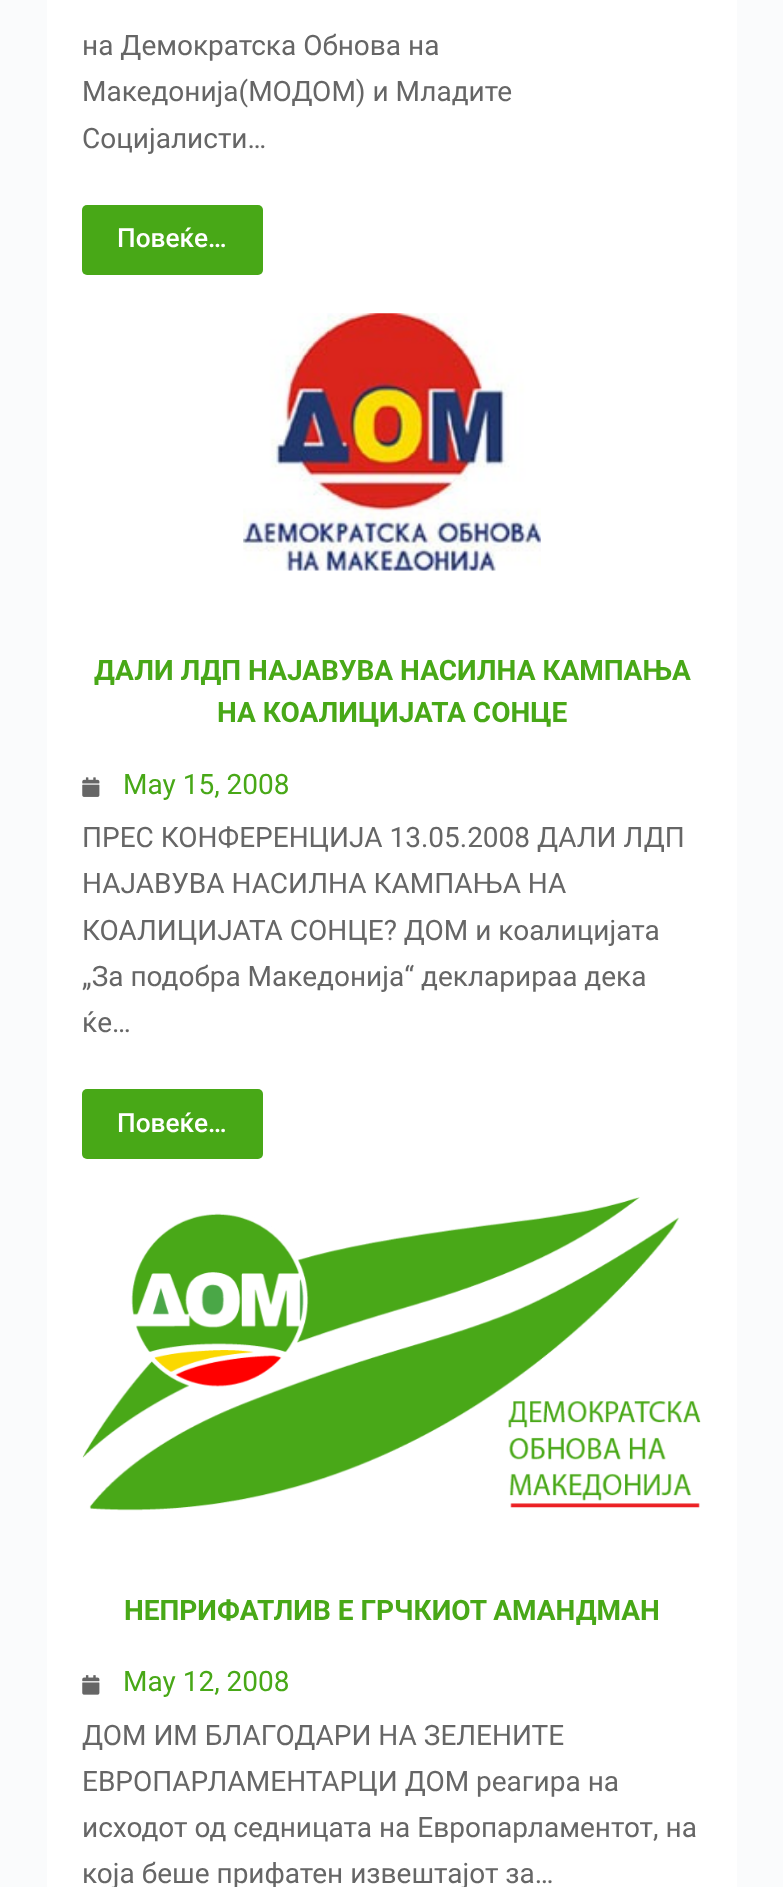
async function draw(canvas) {
	canvas.width = 783;
	canvas.height = 1887;
	const c = canvas.getContext('2d');
	c.miterLimit = 4;
	c.fontKerning = 'normal';
	async function loadImage(src) {
		const img = new Image();
		img.src = src;
		await img.decode();
		return img;
	}

	c.fillStyle = '#fafbfc';
	c.fillRect(0, 0, 783, 1887);
	c.fillStyle = '#fff';
	c.fillRect(47, 0, 690, 1887);
	c.font = '28px Roboto';
	c.fillStyle = '#666';
	for (const [text, x, y] of [
		['на Демократска Обнова на', 82, 55],
		['Македонија(МОДОМ) и Младите', 82, 101],
		['Социјалисти…', 82, 148],
	]) {
		c.fillText(text, x, y);
	}
	c.fillStyle = '#48a817';
	c.beginPath();
	c.roundRect(82, 205, 181, 70, 5);
	c.fill();
	c.font = '500 26.25px Roboto';
	c.fillStyle = '#fff';
	c.fillText('Повеќе…', 117, 247);
	c.drawImage(await loadImage('img1.png'), 243, 313, 298, 258);
	c.font = 'bold 28px Roboto';
	c.fillStyle = '#48a817';
	c.fillText('ДАЛИ ЛДП НАЈАВУВА НАСИЛНА КАМПАЊА', 94, 680);
	c.fillText('НА КОАЛИЦИЈАТА СОНЦЕ', 217, 722);
	c.drawImage(await loadImage('img2.png'), 82, 777, 18, 20);
	c.font = '28px Roboto';
	c.fillText('May 15, 2008', 123, 794);
	c.fillStyle = '#666';
	for (const [text, x, y] of [
		['ПРЕС КОНФЕРЕНЦИЈА 13.05.2008 ДАЛИ ЛДП', 82, 847],
		['НАЈАВУВА НАСИЛНА КАМПАЊА НА', 82, 893],
		['КОАЛИЦИЈАТА СОНЦЕ? ДОМ и коалицијата', 82, 940],
		['„За подобра Македонија“ декларираа дека', 82, 986],
		['ќе…', 82, 1032],
	]) {
		c.fillText(text, x, y);
	}
	c.fillStyle = '#48a817';
	c.beginPath();
	c.roundRect(82, 1089, 181, 70, 5);
	c.fill();
	c.font = '500 26.25px Roboto';
	c.fillStyle = '#fff';
	c.fillText('Повеќе…', 117, 1132);
	c.drawImage(await loadImage('img3.png'), 82, 1197, 619, 314);
	c.font = 'bold 28px Roboto';
	c.fillStyle = '#48a817';
	c.fillText('НЕПРИФАТЛИВ Е ГРЧКИОТ АМАНДМАН', 124, 1620);
	c.drawImage(await loadImage('img4.png'), 82, 1675, 18, 20);
	c.font = '28px Roboto';
	c.fillText('May 12, 2008', 123, 1691);
	c.fillStyle = '#666';
	for (const [text, x, y] of [
		['ДОМ ИМ БЛАГОДАРИ НА ЗЕЛЕНИТЕ', 82, 1745],
		['ЕВРОПАРЛАМЕНТАРЦИ ДОМ реагира на', 82, 1791],
		['исходот од седницата на Европарламентот, на', 82, 1837],
		['која беше прифатен извештајот за…', 82, 1883],
	]) {
		c.fillText(text, x, y);
	}
}

draw(document.querySelector('canvas'));
